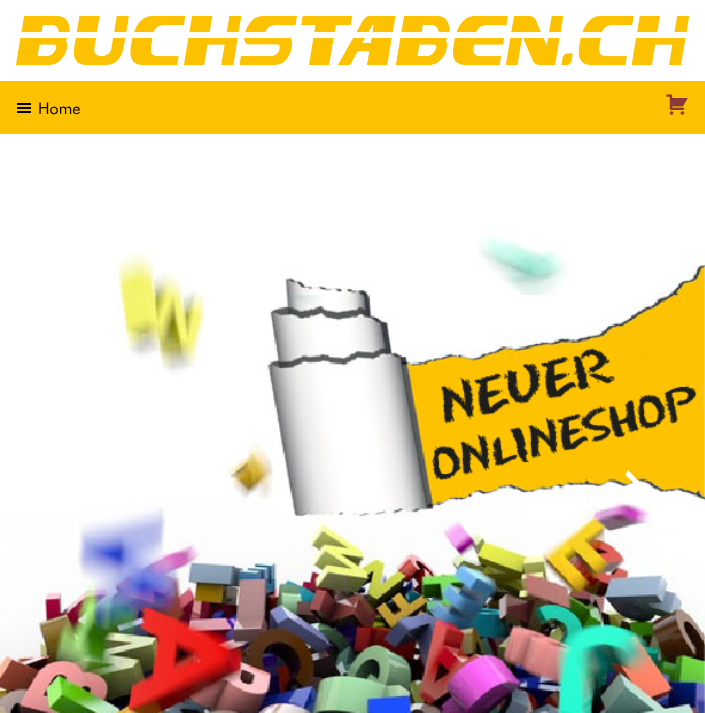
async function draw(canvas) {
	canvas.width = 705;
	canvas.height = 713;
	const c = canvas.getContext('2d');
	c.miterLimit = 4;
	c.fontKerning = 'normal';
	async function loadImage(src) {
		const img = new Image();
		img.src = src;
		await img.decode();
		return img;
	}

	c.fillStyle = '#fff';
	c.fillRect(0, 0, 705, 713);
	c.drawImage(await loadImage('img1.png'), 16, 16, 673, 49);
	c.fillStyle = '#fcc200';
	c.fillRect(0, 81, 705, 53);
	c.drawImage(await loadImage('img2.png'), 17, 103, 14, 10);
	c.font = '16px Futura';
	c.fillStyle = '#000';
	c.fillText('Home', 38, 114);
	c.drawImage(await loadImage('img3.png'), 666, 94, 22, 21);
	c.drawImage(await loadImage('img4.png'), 0, 134, 705, 579);
	c.fillStyle = '#fff';
	c.beginPath();
	c.moveTo(625.5, 499);
	c.lineTo(637.5, 487);
	c.lineTo(625.5, 475);
	c.lineTo(628, 470);
	c.lineTo(644.5, 487);
	c.lineTo(628, 504);
	c.closePath();
	c.fill();
}

draw(document.querySelector('canvas'));
